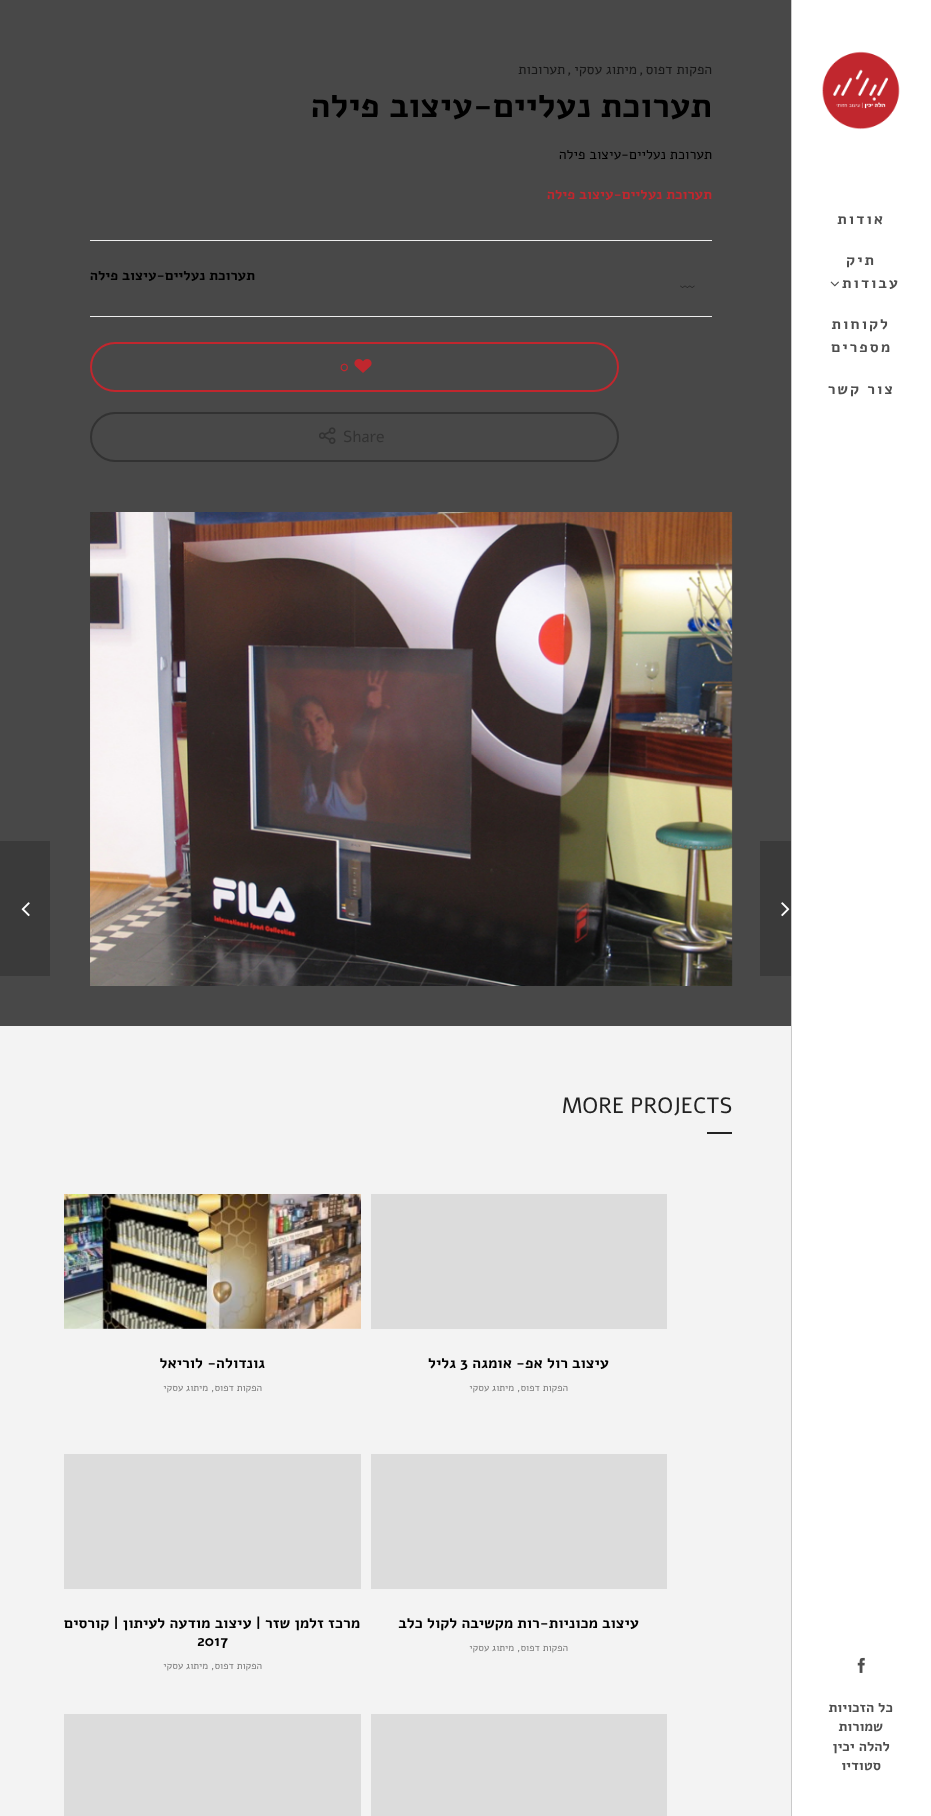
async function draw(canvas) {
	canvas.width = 931;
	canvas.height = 1816;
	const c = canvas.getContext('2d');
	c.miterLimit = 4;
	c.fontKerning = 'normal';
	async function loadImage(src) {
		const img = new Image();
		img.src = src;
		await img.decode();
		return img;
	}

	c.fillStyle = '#484848';
	c.fillRect(0, 0, 931, 1816);
	c.fillStyle = '#fff';
	c.fillRect(792, 0, 139, 1816);
	c.fillStyle = '#cacaca';
	c.fillRect(791, 0, 1, 1816);
	c.drawImage(await loadImage('img1.png'), 822, 51, 78, 79);
	c.letterSpacing = '2px';
	c.direction = 'rtl';
	c.font = 'bold 15px Alef';
	c.fillStyle = '#4e4e4e';
	for (const [text, x, y] of [
		['אודות', 885, 224],
		['תיק', 876, 265],
		['עבודות', 900, 288],
	]) {
		c.fillText(text, x, y);
	}
	c.drawImage(await loadImage('img2.png'), 830, 281, 9, 6);
	for (const [text, x, y] of [
		['לקוחות', 890, 329],
		['מספרים', 892, 352],
		['צור קשר', 895, 394],
	]) {
		c.fillText(text, x, y);
	}
	c.drawImage(await loadImage('img3.png'), 857, 1657, 8, 16);
	c.letterSpacing = '0px';
	c.font = 'bold 14px Alef';
	for (const [text, x, y] of [
		['כל הזכויות', 893, 1712],
		['שמורות', 883, 1731],
		['להלה יכין', 890, 1751],
		['סטודיו', 881, 1770],
	]) {
		c.fillText(text, x, y);
	}
	c.fillStyle = '#3a3a3a';
	c.fillRect(760, 841, 31, 135);
	c.font = '14px Alef';
	c.fillStyle = '#161616';
	c.fillText('הפקות דפוס', 712, 74);
	c.direction = 'ltr';
	c.fillText(',', 639, 74);
	c.direction = 'rtl';
	c.fillText('מיתוג עסקי', 637, 74);
	c.direction = 'ltr';
	c.fillText(',', 567, 74);
	c.direction = 'rtl';
	c.fillText('תערוכות', 565, 74);
	c.font = 'bold 34px Alef';
	c.fillStyle = '#000';
	c.fillText('תערוכת נעליים-עיצוב פילה', 712, 117);
	c.font = '14px Alef';
	c.fillText('תערוכת נעליים-עיצוב פילה', 712, 159);
	c.font = 'bold 14px Alef';
	c.fillStyle = '#c1272e';
	c.fillText('תערוכת נעליים-עיצוב פילה', 712, 199);
	c.fillStyle = '#eee';
	c.fillRect(90, 240, 622, 1);
	c.fillStyle = '#000';
	c.fillText('תערוכת נעליים-עיצוב פילה', 255, 280);
	c.drawImage(await loadImage('img4.png'), 680, 285, 15, 3);
	c.fillStyle = '#eee';
	c.fillRect(90, 316, 622, 1);
	c.beginPath();
	c.roundRect(91, 343, 527, 48, 24);
	c.strokeStyle = '#c1272e';
	c.lineWidth = 2;
	c.stroke();
	c.drawImage(await loadImage('img5.png'), 354, 359, 18, 14);
	c.direction = 'ltr';
	c.font = '14px Alef';
	c.fillStyle = '#c1272e';
	c.fillText('0', 340, 371);
	c.beginPath();
	c.roundRect(91, 413, 527, 48, 24);
	c.strokeStyle = '#323232';
	c.stroke();
	c.font = '16px Alef';
	c.fillStyle = '#323232';
	c.fillText('Share', 343, 442);
	c.drawImage(await loadImage('img6.png'), 319, 427, 17, 17);
	c.drawImage(await loadImage('img7.png'), 90, 512, 643, 474);
	c.drawImage(await loadImage('img8.png'), 781, 902, 9, 15);
	c.fillStyle = '#3a3a3a';
	c.fillRect(0, 841, 50, 135);
	c.drawImage(await loadImage('img9.png'), 21, 902, 9, 15);
	c.fillStyle = '#f3f3f3';
	c.fillRect(0, 1026, 791, 790);
	c.font = '22px Alef';
	c.fillStyle = '#222';
	c.fillText('MORE PROJECTS', 562, 1113);
	c.fillRect(707, 1132, 25, 2);
	c.fillStyle = '#dcdcdc';
	c.fillRect(371, 1194, 296, 135);
	c.direction = 'rtl';
	c.font = 'bold 15px Alef';
	c.fillStyle = '#000';
	c.fillText('עיצוב רול אפ- אומגה', 609, 1368);
	c.direction = 'ltr';
	c.fillText('3', 460, 1368);
	c.direction = 'rtl';
	c.fillText('גליל', 456, 1368);
	c.font = '10px Alef';
	c.fillStyle = '#7d7d7d';
	c.fillText('הפקות דפוס, מיתוג עסקי', 568, 1391);
	c.drawImage(await loadImage('img10.png'), 64, 1194, 297, 135);
	c.font = 'bold 15px Alef';
	c.fillStyle = '#000';
	c.fillText('גונדולה- לוריאל', 265, 1368);
	c.font = '10px Alef';
	c.fillStyle = '#7d7d7d';
	c.fillText('הפקות דפוס, מיתוג עסקי', 262, 1391);
	c.fillStyle = '#dcdcdc';
	c.fillRect(371, 1454, 296, 135);
	c.font = 'bold 15px Alef';
	c.fillStyle = '#000';
	c.fillText('עיצוב מכוניות-רות מקשיבה לקול כלב', 639, 1628);
	c.font = '10px Alef';
	c.fillStyle = '#7d7d7d';
	c.fillText('הפקות דפוס, מיתוג עסקי', 568, 1651);
	c.fillStyle = '#dcdcdc';
	c.fillRect(64, 1454, 297, 135);
	c.font = 'bold 15px Alef';
	c.fillStyle = '#000';
	c.fillText('מרכז זלמן שזר | עיצוב מודעה לעיתון | קורסים', 360, 1628);
	c.direction = 'ltr';
	c.fillText('2017', 197, 1646);
	c.direction = 'rtl';
	c.font = '10px Alef';
	c.fillStyle = '#7d7d7d';
	c.fillText('הפקות דפוס, מיתוג עסקי', 262, 1669);
	c.fillStyle = '#dcdcdc';
	c.fillRect(371, 1714, 296, 102);
	c.fillRect(64, 1714, 297, 102);
}

draw(document.querySelector('canvas'));
